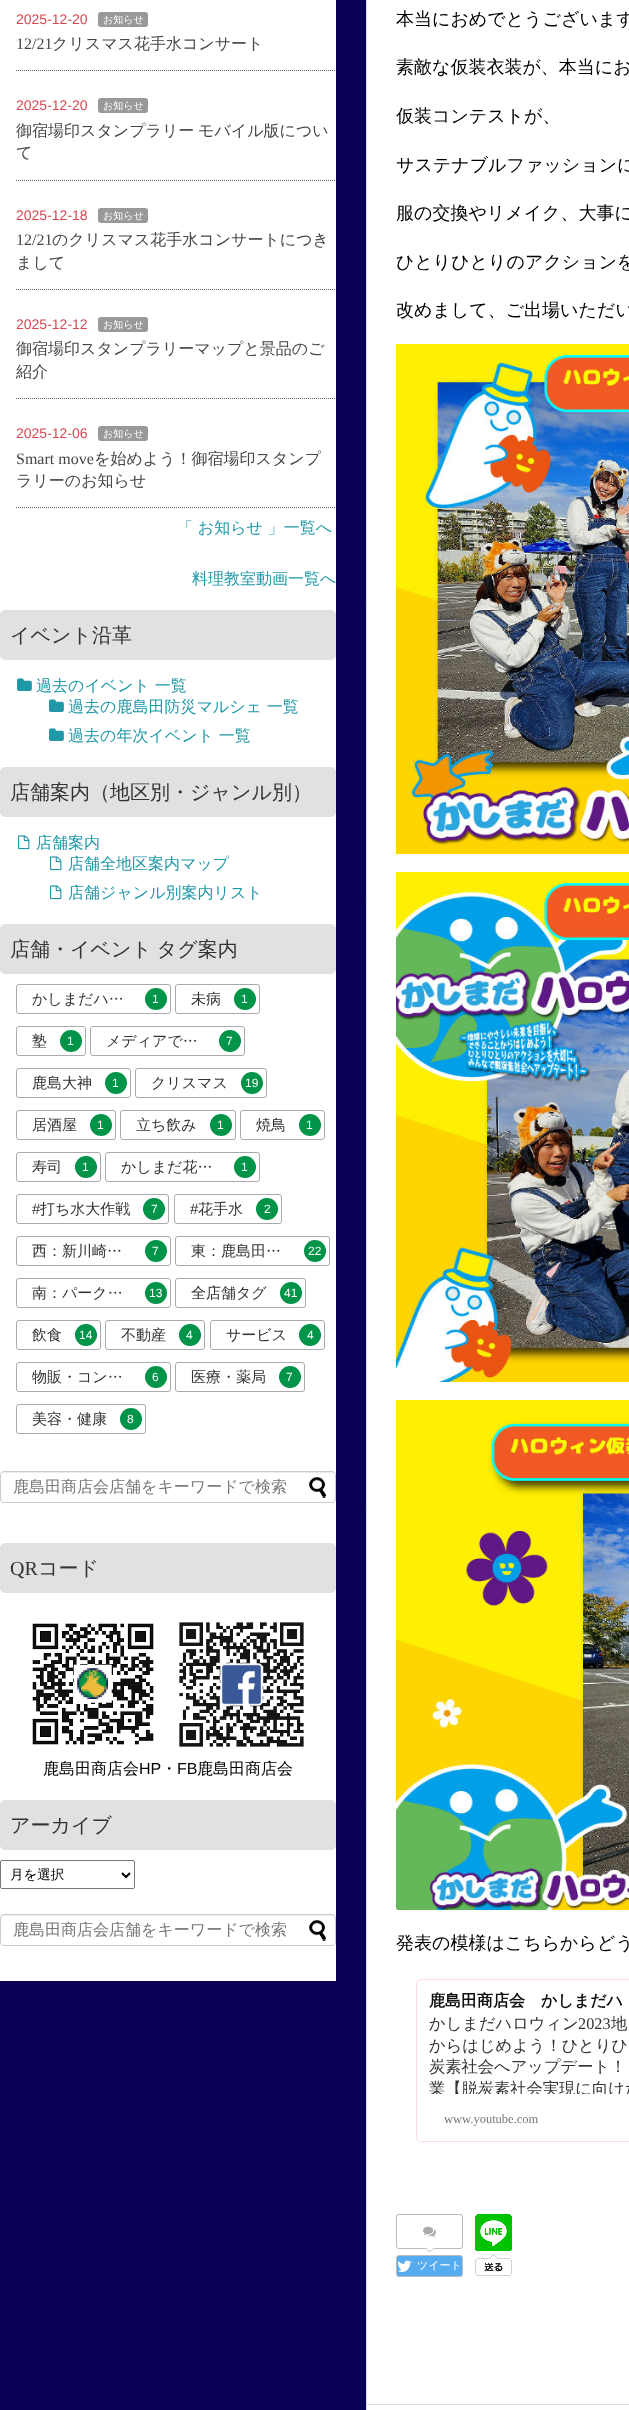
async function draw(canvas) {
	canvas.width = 629;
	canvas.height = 2410;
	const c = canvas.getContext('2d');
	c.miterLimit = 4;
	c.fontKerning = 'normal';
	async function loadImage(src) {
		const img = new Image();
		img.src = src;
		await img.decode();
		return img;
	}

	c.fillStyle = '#0a0056';
	c.fillRect(0, 0, 629, 2410);
	c.fillStyle = '#fff';
	c.fillRect(0, 0, 336, 1981);
	c.beginPath();
	c.moveTo(16, 70.5);
	c.lineTo(336, 70.5);
	c.strokeStyle = '#666';
	c.setLineDash([1, 1]);
	c.stroke();
	c.font = '14px Liberation Sans';
	c.fillStyle = '#d44950';
	c.fillText('2025-12-20', 16, 24);
	c.fillStyle = '#999';
	c.beginPath();
	c.roundRect(98, 12, 50, 15, 3);
	c.fill();
	c.font = '500 10px WenQuanYi Zen Hei';
	c.fillStyle = '#fff';
	c.fillText('お知らせ', 103, 23);
	c.font = '16px Liberation Serif';
	c.fillStyle = '#464646';
	c.fillText('12/21', 16, 49);
	c.font = '500 16px WenQuanYi Zen Hei';
	c.fillText('クリスマス花手水コンサート', 52, 49);
	c.beginPath();
	c.moveTo(16, 180.5);
	c.lineTo(336, 180.5);
	c.stroke();
	c.font = '14px Liberation Sans';
	c.fillStyle = '#d44950';
	c.fillText('2025-12-20', 16, 110);
	c.fillStyle = '#999';
	c.beginPath();
	c.roundRect(98, 98, 50, 15, 3);
	c.fill();
	c.font = '500 10px WenQuanYi Zen Hei';
	c.fillStyle = '#fff';
	c.fillText('お知らせ', 103, 109);
	c.wordSpacing = '-1px';
	c.font = '500 16px WenQuanYi Zen Hei';
	c.fillStyle = '#464646';
	c.fillText('御宿場印スタンプラリー モバイル版につい', 16, 136);
	c.wordSpacing = '0px';
	c.fillText('て', 16, 158);
	c.beginPath();
	c.moveTo(16, 289.5);
	c.lineTo(336, 289.5);
	c.stroke();
	c.font = '14px Liberation Sans';
	c.fillStyle = '#d44950';
	c.fillText('2025-12-18', 16, 220);
	c.fillStyle = '#999';
	c.beginPath();
	c.roundRect(98, 208, 50, 15, 3);
	c.fill();
	c.font = '500 10px WenQuanYi Zen Hei';
	c.fillStyle = '#fff';
	c.fillText('お知らせ', 103, 219);
	c.font = '16px Liberation Serif';
	c.fillStyle = '#464646';
	c.fillText('12/21', 16, 245);
	c.font = '500 16px WenQuanYi Zen Hei';
	c.fillText('のクリスマス花手水コンサートにつき', 52, 245);
	c.fillText('まして', 16, 268);
	c.beginPath();
	c.moveTo(16, 398.5);
	c.lineTo(336, 398.5);
	c.stroke();
	c.font = '14px Liberation Sans';
	c.fillStyle = '#d44950';
	c.fillText('2025-12-12', 16, 329);
	c.fillStyle = '#999';
	c.beginPath();
	c.roundRect(98, 317, 50, 15, 3);
	c.fill();
	c.font = '500 10px WenQuanYi Zen Hei';
	c.fillStyle = '#fff';
	c.fillText('お知らせ', 103, 328);
	c.font = '500 16px WenQuanYi Zen Hei';
	c.fillStyle = '#464646';
	c.fillText('御宿場印スタンプラリーマップと景品のご', 16, 354);
	c.fillText('紹介', 16, 377);
	c.beginPath();
	c.moveTo(16, 507.5);
	c.lineTo(336, 507.5);
	c.stroke();
	c.font = '14px Liberation Sans';
	c.fillStyle = '#d44950';
	c.fillText('2025-12-06', 16, 438);
	c.fillStyle = '#999';
	c.beginPath();
	c.roundRect(98, 426, 50, 15, 3);
	c.fill();
	c.font = '500 10px WenQuanYi Zen Hei';
	c.fillStyle = '#fff';
	c.fillText('お知らせ', 103, 437);
	c.font = '16px Liberation Serif';
	c.fillStyle = '#464646';
	c.fillText('Smart move', 16, 464);
	c.font = '500 16px WenQuanYi Zen Hei';
	c.fillText('を始めよう！御宿場印スタンプ', 94, 464);
	c.fillText('ラリーのお知らせ', 16, 486);
	c.fillStyle = '#2098a8';
	c.fillText('「 お知らせ 」一覧へ', 177, 533);
	c.fillText('料理教室動画一覧へ', 192, 584);
	c.fillStyle = '#e1e1e1';
	c.beginPath();
	c.roundRect(0, 610, 336, 50, 5);
	c.fill();
	c.font = '500 20px WenQuanYi Zen Hei';
	c.fillStyle = '#333';
	c.fillText('イベント沿革', 10, 642);
	c.drawImage(await loadImage('img1.png'), 17, 678, 15, 13);
	c.font = '500 16px WenQuanYi Zen Hei';
	c.fillStyle = '#2098a8';
	c.fillText('過去のイベント 一覧', 36, 691);
	c.drawImage(await loadImage('img1.png'), 49, 699, 15, 13);
	c.fillText('過去の鹿島田防災マルシェ 一覧', 68, 712);
	c.drawImage(await loadImage('img1.png'), 49, 728, 15, 13);
	c.fillText('過去の年次イベント 一覧', 68, 741);
	c.fillStyle = '#e1e1e1';
	c.beginPath();
	c.roundRect(0, 767, 336, 50, 5);
	c.fill();
	c.font = '500 20px WenQuanYi Zen Hei';
	c.fillStyle = '#333';
	c.fillText('店舗案内（地区別・ジャンル別）', 10, 799);
	c.drawImage(await loadImage('img2.png'), 18, 835, 12, 15);
	c.font = '500 16px WenQuanYi Zen Hei';
	c.fillStyle = '#2098a8';
	c.fillText('店舗案内', 36, 848);
	c.drawImage(await loadImage('img2.png'), 50, 856, 12, 15);
	c.fillText('店舗全地区案内マップ', 68, 869);
	c.drawImage(await loadImage('img2.png'), 50, 885, 12, 15);
	c.fillText('店舗ジャンル別案内リスト', 68, 898);
	c.fillStyle = '#e1e1e1';
	c.beginPath();
	c.roundRect(0, 924, 336, 50, 5);
	c.fill();
	c.wordSpacing = '-1px';
	c.font = '500 20px WenQuanYi Zen Hei';
	c.fillStyle = '#333';
	c.fillText('店舗・イベント タグ案内', 10, 956);
	c.beginPath();
	c.roundRect(16.5, 984.5, 154, 29, 2.5);
	c.strokeStyle = '#aaa';
	c.setLineDash([]);
	c.stroke();
	c.wordSpacing = '0px';
	c.font = '500 15px WenQuanYi Zen Hei';
	c.fillText('かしまだハ…', 32, 1004);
	c.fillStyle = '#009448';
	c.beginPath();
	c.arc(156, 999, 11, 0, 2 * Math.PI);
	c.fill();
	c.font = '12px Liberation Sans';
	c.fillStyle = '#fff';
	c.fillText('1', 152, 1003);
	c.beginPath();
	c.roundRect(175.5, 984.5, 84, 29, 2.5);
	c.stroke();
	c.font = '500 15px WenQuanYi Zen Hei';
	c.fillStyle = '#333';
	c.fillText('未病', 191, 1004);
	c.fillStyle = '#009448';
	c.beginPath();
	c.arc(245, 999, 11, 0, 2 * Math.PI);
	c.fill();
	c.font = '12px Liberation Sans';
	c.fillStyle = '#fff';
	c.fillText('1', 241, 1003);
	c.beginPath();
	c.roundRect(16.5, 1026.5, 69, 29, 2.5);
	c.stroke();
	c.font = '500 15px WenQuanYi Zen Hei';
	c.fillStyle = '#333';
	c.fillText('塾', 32, 1046);
	c.fillStyle = '#009448';
	c.beginPath();
	c.arc(71, 1041, 11, 0, 2 * Math.PI);
	c.fill();
	c.font = '12px Liberation Sans';
	c.fillStyle = '#fff';
	c.fillText('1', 67, 1045);
	c.beginPath();
	c.roundRect(90.5, 1026.5, 154, 29, 2.5);
	c.stroke();
	c.font = '500 15px WenQuanYi Zen Hei';
	c.fillStyle = '#333';
	c.fillText('メディアで…', 106, 1046);
	c.fillStyle = '#009448';
	c.beginPath();
	c.arc(230, 1041, 11, 0, 2 * Math.PI);
	c.fill();
	c.font = '12px Liberation Sans';
	c.fillStyle = '#fff';
	c.fillText('7', 226, 1045);
	c.beginPath();
	c.roundRect(16.5, 1068.5, 114, 29, 2.5);
	c.stroke();
	c.font = '500 15px WenQuanYi Zen Hei';
	c.fillStyle = '#333';
	c.fillText('鹿島大神', 32, 1088);
	c.fillStyle = '#009448';
	c.beginPath();
	c.arc(116, 1083, 11, 0, 2 * Math.PI);
	c.fill();
	c.font = '12px Liberation Sans';
	c.fillStyle = '#fff';
	c.fillText('1', 112, 1087);
	c.beginPath();
	c.roundRect(135.5, 1068.5, 131, 29, 2.5);
	c.stroke();
	c.font = '500 15px WenQuanYi Zen Hei';
	c.fillStyle = '#333';
	c.fillText('クリスマス', 151, 1088);
	c.fillStyle = '#009448';
	c.beginPath();
	c.arc(252, 1083, 11, 0, 2 * Math.PI);
	c.fill();
	c.font = '12px Liberation Sans';
	c.fillStyle = '#fff';
	c.fillText('19', 245, 1087);
	c.beginPath();
	c.roundRect(16.5, 1110.5, 99, 29, 2.5);
	c.stroke();
	c.font = '500 15px WenQuanYi Zen Hei';
	c.fillStyle = '#333';
	c.fillText('居酒屋', 32, 1130);
	c.fillStyle = '#009448';
	c.beginPath();
	c.arc(101, 1125, 11, 0, 2 * Math.PI);
	c.fill();
	c.font = '12px Liberation Sans';
	c.fillStyle = '#fff';
	c.fillText('1', 97, 1129);
	c.beginPath();
	c.roundRect(120.5, 1110.5, 115, 29, 2.5);
	c.stroke();
	c.font = '500 15px WenQuanYi Zen Hei';
	c.fillStyle = '#333';
	c.fillText('立ち飲み', 136, 1130);
	c.fillStyle = '#009448';
	c.beginPath();
	c.arc(221, 1125, 11, 0, 2 * Math.PI);
	c.fill();
	c.font = '12px Liberation Sans';
	c.fillStyle = '#fff';
	c.fillText('1', 217, 1129);
	c.beginPath();
	c.roundRect(240.5, 1110.5, 84, 29, 2.5);
	c.stroke();
	c.font = '500 15px WenQuanYi Zen Hei';
	c.fillStyle = '#333';
	c.fillText('焼鳥', 256, 1130);
	c.fillStyle = '#009448';
	c.beginPath();
	c.arc(310, 1125, 11, 0, 2 * Math.PI);
	c.fill();
	c.font = '12px Liberation Sans';
	c.fillStyle = '#fff';
	c.fillText('1', 306, 1129);
	c.beginPath();
	c.roundRect(16.5, 1152.5, 84, 29, 2.5);
	c.stroke();
	c.font = '500 15px WenQuanYi Zen Hei';
	c.fillStyle = '#333';
	c.fillText('寿司', 32, 1172);
	c.fillStyle = '#009448';
	c.beginPath();
	c.arc(86, 1167, 11, 0, 2 * Math.PI);
	c.fill();
	c.font = '12px Liberation Sans';
	c.fillStyle = '#fff';
	c.fillText('1', 82, 1171);
	c.beginPath();
	c.roundRect(105.5, 1152.5, 154, 29, 2.5);
	c.stroke();
	c.font = '500 15px WenQuanYi Zen Hei';
	c.fillStyle = '#333';
	c.fillText('かしまだ花…', 121, 1172);
	c.fillStyle = '#009448';
	c.beginPath();
	c.arc(245, 1167, 11, 0, 2 * Math.PI);
	c.fill();
	c.font = '12px Liberation Sans';
	c.fillStyle = '#fff';
	c.fillText('1', 241, 1171);
	c.beginPath();
	c.roundRect(16.5, 1194.5, 152, 29, 2.5);
	c.stroke();
	c.font = '15px Liberation Sans';
	c.fillStyle = '#333';
	c.fillText('#', 32, 1214);
	c.font = '500 15px WenQuanYi Zen Hei';
	c.fillText('打ち水大作戦', 40, 1214);
	c.fillStyle = '#009448';
	c.beginPath();
	c.arc(154, 1209, 11, 0, 2 * Math.PI);
	c.fill();
	c.font = '12px Liberation Sans';
	c.fillStyle = '#fff';
	c.fillText('7', 151, 1213);
	c.beginPath();
	c.roundRect(174.5, 1194.5, 107, 29, 2.5);
	c.stroke();
	c.font = '15px Liberation Sans';
	c.fillStyle = '#333';
	c.fillText('#', 190, 1214);
	c.font = '500 15px WenQuanYi Zen Hei';
	c.fillText('花手水', 198, 1214);
	c.fillStyle = '#009448';
	c.beginPath();
	c.arc(267, 1209, 11, 0, 2 * Math.PI);
	c.fill();
	c.font = '12px Liberation Sans';
	c.fillStyle = '#fff';
	c.fillText('2', 264, 1213);
	c.beginPath();
	c.roundRect(16.5, 1236.5, 154, 29, 2.5);
	c.stroke();
	c.font = '500 15px WenQuanYi Zen Hei';
	c.fillStyle = '#333';
	c.fillText('西：新川崎…', 32, 1256);
	c.fillStyle = '#009448';
	c.beginPath();
	c.arc(156, 1251, 11, 0, 2 * Math.PI);
	c.fill();
	c.font = '12px Liberation Sans';
	c.fillStyle = '#fff';
	c.fillText('7', 152, 1255);
	c.beginPath();
	c.roundRect(175.5, 1236.5, 154, 29, 2.5);
	c.stroke();
	c.font = '500 15px WenQuanYi Zen Hei';
	c.fillStyle = '#333';
	c.fillText('東：鹿島田…', 191, 1256);
	c.fillStyle = '#009448';
	c.beginPath();
	c.arc(315, 1251, 11, 0, 2 * Math.PI);
	c.fill();
	c.font = '12px Liberation Sans';
	c.fillStyle = '#fff';
	c.fillText('22', 308, 1255);
	c.beginPath();
	c.roundRect(16.5, 1278.5, 154, 29, 2.5);
	c.stroke();
	c.font = '500 15px WenQuanYi Zen Hei';
	c.fillStyle = '#333';
	c.fillText('南：パーク…', 32, 1298);
	c.fillStyle = '#009448';
	c.beginPath();
	c.arc(156, 1293, 11, 0, 2 * Math.PI);
	c.fill();
	c.font = '12px Liberation Sans';
	c.fillStyle = '#fff';
	c.fillText('13', 149, 1297);
	c.beginPath();
	c.roundRect(175.5, 1278.5, 130, 29, 2.5);
	c.stroke();
	c.font = '500 15px WenQuanYi Zen Hei';
	c.fillStyle = '#333';
	c.fillText('全店舗タグ', 191, 1298);
	c.fillStyle = '#009448';
	c.beginPath();
	c.arc(291, 1293, 11, 0, 2 * Math.PI);
	c.fill();
	c.font = '12px Liberation Sans';
	c.fillStyle = '#fff';
	c.fillText('41', 284, 1297);
	c.beginPath();
	c.roundRect(16.5, 1320.5, 84, 29, 2.5);
	c.stroke();
	c.font = '500 15px WenQuanYi Zen Hei';
	c.fillStyle = '#333';
	c.fillText('飲食', 32, 1340);
	c.fillStyle = '#009448';
	c.beginPath();
	c.arc(86, 1335, 11, 0, 2 * Math.PI);
	c.fill();
	c.font = '12px Liberation Sans';
	c.fillStyle = '#fff';
	c.fillText('14', 79, 1339);
	c.beginPath();
	c.roundRect(105.5, 1320.5, 99, 29, 2.5);
	c.stroke();
	c.font = '500 15px WenQuanYi Zen Hei';
	c.fillStyle = '#333';
	c.fillText('不動産', 121, 1340);
	c.fillStyle = '#009448';
	c.beginPath();
	c.arc(190, 1335, 11, 0, 2 * Math.PI);
	c.fill();
	c.font = '12px Liberation Sans';
	c.fillStyle = '#fff';
	c.fillText('4', 186, 1339);
	c.beginPath();
	c.roundRect(210.5, 1320.5, 114, 29, 2.5);
	c.stroke();
	c.font = '500 15px WenQuanYi Zen Hei';
	c.fillStyle = '#333';
	c.fillText('サービス', 226, 1340);
	c.fillStyle = '#009448';
	c.beginPath();
	c.arc(310, 1335, 11, 0, 2 * Math.PI);
	c.fill();
	c.font = '12px Liberation Sans';
	c.fillStyle = '#fff';
	c.fillText('4', 307, 1339);
	c.beginPath();
	c.roundRect(16.5, 1362.5, 154, 29, 2.5);
	c.stroke();
	c.font = '500 15px WenQuanYi Zen Hei';
	c.fillStyle = '#333';
	c.fillText('物販・コン…', 32, 1382);
	c.fillStyle = '#009448';
	c.beginPath();
	c.arc(156, 1377, 11, 0, 2 * Math.PI);
	c.fill();
	c.font = '12px Liberation Sans';
	c.fillStyle = '#fff';
	c.fillText('6', 152, 1381);
	c.beginPath();
	c.roundRect(175.5, 1362.5, 129, 29, 2.5);
	c.stroke();
	c.font = '500 15px WenQuanYi Zen Hei';
	c.fillStyle = '#333';
	c.fillText('医療・薬局', 191, 1382);
	c.fillStyle = '#009448';
	c.beginPath();
	c.arc(290, 1377, 11, 0, 2 * Math.PI);
	c.fill();
	c.font = '12px Liberation Sans';
	c.fillStyle = '#fff';
	c.fillText('7', 286, 1381);
	c.beginPath();
	c.roundRect(16.5, 1404.5, 129, 29, 2.5);
	c.stroke();
	c.font = '500 15px WenQuanYi Zen Hei';
	c.fillStyle = '#333';
	c.fillText('美容・健康', 32, 1424);
	c.fillStyle = '#009448';
	c.beginPath();
	c.arc(131, 1419, 11, 0, 2 * Math.PI);
	c.fill();
	c.font = '12px Liberation Sans';
	c.fillStyle = '#fff';
	c.fillText('8', 127, 1423);
	c.fillStyle = '#ececec';
	c.beginPath();
	c.moveTo(4, 1473);
	c.lineTo(332, 1473);
	c.bezierCurveTo(334, 1473, 335, 1474, 335, 1476);
	c.bezierCurveTo(335, 1474, 334, 1472, 332, 1472);
	c.lineTo(4, 1472);
	c.bezierCurveTo(2, 1472, 1, 1474, 1, 1476);
	c.bezierCurveTo(1, 1474, 2, 1473, 4, 1473);
	c.closePath();
	c.fill();
	c.beginPath();
	c.roundRect(0.5, 1471.5, 335, 31, 3.5);
	c.strokeStyle = '#ccc';
	c.stroke();
	c.font = '500 16px WenQuanYi Zen Hei';
	c.fillStyle = '#777';
	c.fillText('鹿島田商店会店舗をキーワードで検索', 13, 1492);
	c.drawImage(await loadImage('img3.png'), 309, 1477, 17, 21);
	c.fillStyle = '#e1e1e1';
	c.beginPath();
	c.roundRect(0, 1543, 336, 50, 5);
	c.fill();
	c.font = '20px Liberation Serif';
	c.fillStyle = '#333';
	c.fillText('QR', 10, 1575);
	c.font = '500 20px WenQuanYi Zen Hei';
	c.fillText('コード', 38, 1575);
	c.drawImage(await loadImage('img4.png'), 32, 1622, 272, 125);
	c.font = '500 16px WenQuanYi Zen Hei';
	c.fillStyle = '#000';
	c.fillText('鹿島田商店会', 43, 1774);
	c.font = '16px Liberation Sans';
	c.fillText('HP', 139, 1774);
	c.font = '500 16px WenQuanYi Zen Hei';
	c.fillText('・', 161, 1774);
	c.font = '16px Liberation Sans';
	c.fillText('FB', 177, 1774);
	c.font = '500 16px WenQuanYi Zen Hei';
	c.fillText('鹿島田商店会', 197, 1774);
	c.fillStyle = '#e1e1e1';
	c.beginPath();
	c.roundRect(0, 1800, 336, 50, 5);
	c.fill();
	c.font = '500 20px WenQuanYi Zen Hei';
	c.fillStyle = '#333';
	c.fillText('アーカイブ', 10, 1832);
	c.beginPath();
	c.roundRect(0.5, 1860.5, 134, 28, 1.5);
	c.strokeStyle = '#767676';
	c.stroke();
	c.beginPath();
	c.moveTo(122, 1873);
	c.lineTo(126, 1877);
	c.lineTo(130, 1873);
	c.strokeStyle = '#000';
	c.lineWidth = 2;
	c.stroke();
	c.font = '500 13.5px WenQuanYi Zen Hei';
	c.fillStyle = '#000';
	c.fillText('月を選択', 10, 1879);
	c.fillStyle = '#ececec';
	c.beginPath();
	c.moveTo(4, 1916);
	c.lineTo(332, 1916);
	c.bezierCurveTo(334, 1916, 335, 1917, 335, 1919);
	c.bezierCurveTo(335, 1917, 334, 1915, 332, 1915);
	c.lineTo(4, 1915);
	c.bezierCurveTo(2, 1915, 1, 1917, 1, 1919);
	c.bezierCurveTo(1, 1917, 2, 1916, 4, 1916);
	c.closePath();
	c.fill();
	c.beginPath();
	c.roundRect(0.5, 1914.5, 335, 31, 3.5);
	c.strokeStyle = '#ccc';
	c.lineWidth = 1;
	c.stroke();
	c.font = '500 16px WenQuanYi Zen Hei';
	c.fillStyle = '#777';
	c.fillText('鹿島田商店会店舗をキーワードで検索', 13, 1935);
	c.drawImage(await loadImage('img3.png'), 309, 1920, 17, 21);
	c.fillStyle = '#fff';
	c.beginPath();
	c.rect(366.5, -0.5, 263, 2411);
	c.fill();
	c.strokeStyle = '#ddd';
	c.stroke();
	c.font = '500 18px WenQuanYi Zen Hei';
	c.fillStyle = '#000';
	for (const [text, x, y] of [
		['本当におめでとうございます', 396, 25],
		['素敵な仮装衣装が、本当にお', 396, 73],
		['仮装コンテストが、', 396, 122],
		['サステナブルファッションに', 396, 171],
		['服の交換やリメイク、大事に', 396, 219],
		['ひとりひとりのアクションを', 396, 268],
		['改めまして、ご出場いただい', 396, 316],
	]) {
		c.fillText(text, x, y);
	}
	c.drawImage(await loadImage('img5.png'), 396, 344, 233, 510);
	c.drawImage(await loadImage('img6.png'), 396, 872, 233, 510);
	c.drawImage(await loadImage('img7.png'), 396, 1400, 233, 510);
	c.fillText('発表の模様はこちらからどう', 396, 1949);
	c.beginPath();
	c.roundRect(416.5, 1979.5, 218, 162, 4.5);
	c.strokeStyle = '#ffd8f0';
	c.stroke();
	c.font = 'bold 16px WenQuanYi Zen Hei';
	c.fillStyle = '#111';
	c.fillText('鹿島田商店会　かしまだハ', 429, 2006);
	c.font = '500 16.25px WenQuanYi Zen Hei';
	c.fillStyle = '#333';
	c.fillText('かしまだハロウィン', 429, 2029);
	c.font = '16.25px Liberation Serif';
	c.fillText('2023', 578, 2029);
	c.font = '500 16.25px WenQuanYi Zen Hei';
	for (const [text, x, y] of [
		['地', 611, 2029],
		['からはじめよう！ひとりひ', 429, 2051],
		['炭素社会へアップデート！', 429, 2072],
	]) {
		c.fillText(text, x, y);
	}
	c.save();
	c.beginPath();
	c.rect(429, 2014, 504, 80);
	c.clip();
	c.fillText('業【脱炭素社会実現に向けた', 429, 2094);
	c.restore();
	c.font = '12.5px Liberation Serif';
	c.fillStyle = '#777';
	c.fillText('www.youtube.com', 444, 2123);
	c.beginPath();
	c.roundRect(396.5, 2214.5, 66, 34, 2.5);
	c.strokeStyle = '#bbb';
	c.stroke();
	c.drawImage(await loadImage('img8.png'), 423, 2226, 13, 11);
	c.fillStyle = '#ddd';
	c.beginPath();
	c.moveTo(425, 2248);
	c.lineTo(435, 2248);
	c.lineTo(430, 2253);
	c.closePath();
	c.fill();
	c.fillStyle = '#fff';
	c.beginPath();
	c.moveTo(427, 2248);
	c.lineTo(433, 2248);
	c.lineTo(430, 2251);
	c.closePath();
	c.fill();
	c.fillStyle = '#55acee';
	c.beginPath();
	c.roundRect(396.5, 2255.5, 66, 21, 2.5);
	c.fill();
	c.stroke();
	c.drawImage(await loadImage('img9.png'), 397, 2260, 15, 12);
	c.font = '500 11px WenQuanYi Zen Hei';
	c.fillStyle = '#fff';
	c.fillText('ツイート', 417, 2269);
	c.drawImage(await loadImage('img10.png'), 475, 2214, 37, 62);
	c.fillStyle = '#ddd';
	c.fillRect(366, 2404, 263, 1);
}

draw(document.querySelector('canvas'));
